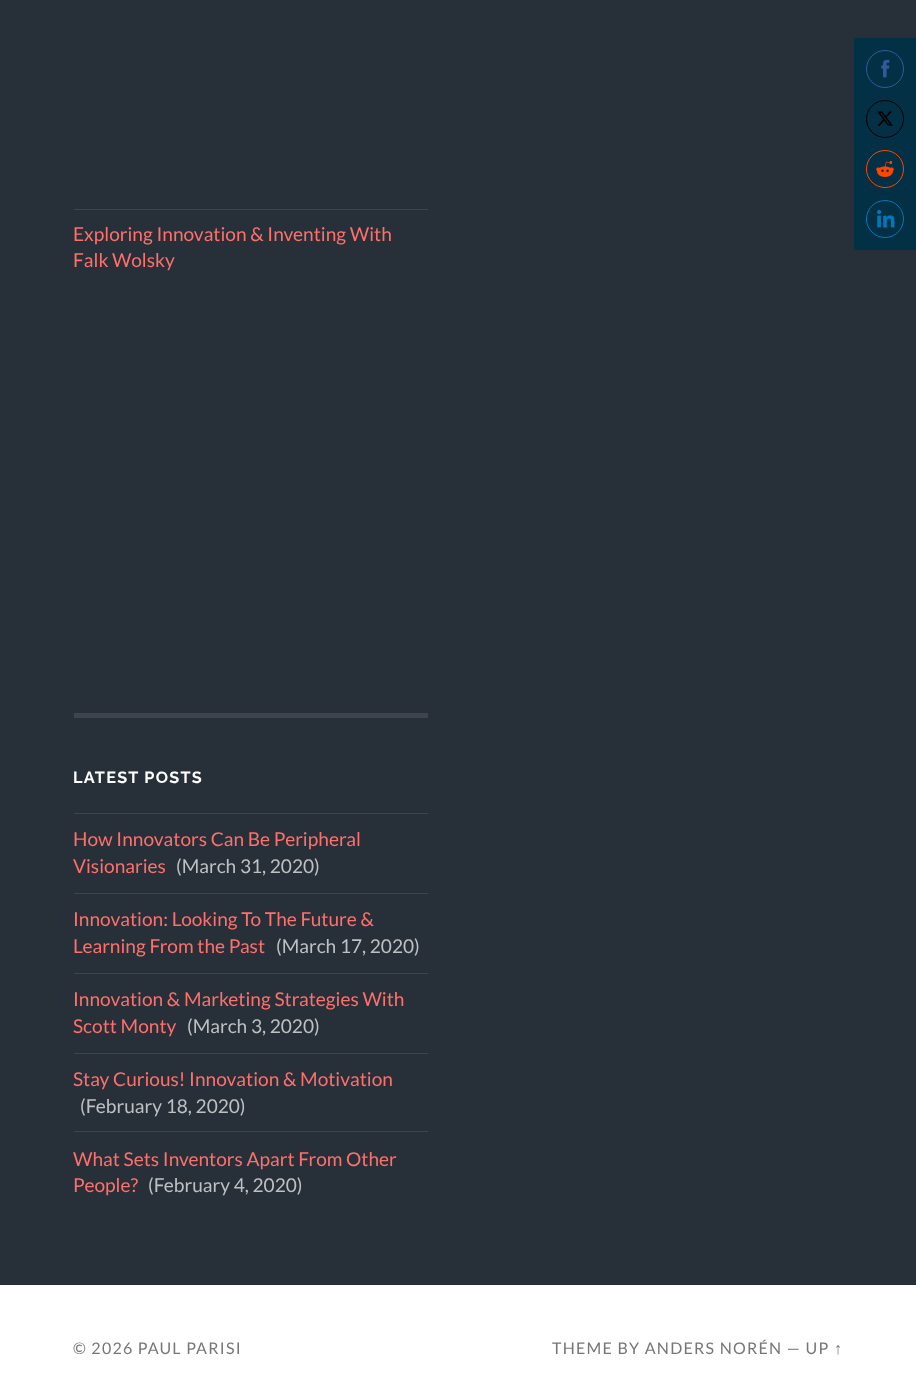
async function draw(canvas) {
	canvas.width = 916;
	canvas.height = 1387;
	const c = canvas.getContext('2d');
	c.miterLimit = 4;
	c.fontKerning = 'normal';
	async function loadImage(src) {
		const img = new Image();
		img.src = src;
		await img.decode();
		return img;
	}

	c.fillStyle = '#fff';
	c.fillRect(0, 0, 916, 1387);
	c.fillStyle = '#272f38';
	c.fillRect(0, 0, 916, 1285);
	c.fillStyle = '#043045';
	c.fillRect(854, 38, 62, 212);
	c.beginPath();
	c.arc(885, 69, 18.5, 0, 2 * Math.PI);
	c.strokeStyle = '#32599d';
	c.stroke();
	c.drawImage(await loadImage('img1.png'), 881, 59, 9, 19);
	c.beginPath();
	c.arc(885, 119, 18.5, 0, 2 * Math.PI);
	c.strokeStyle = '#000';
	c.stroke();
	c.drawImage(await loadImage('img2.png'), 877, 111, 16, 15);
	c.beginPath();
	c.arc(885, 169, 18.5, 0, 2 * Math.PI);
	c.strokeStyle = '#ff4500';
	c.stroke();
	c.drawImage(await loadImage('img3.png'), 876, 161, 18, 16);
	c.beginPath();
	c.arc(885, 219, 18.5, 0, 2 * Math.PI);
	c.strokeStyle = '#0078ba';
	c.stroke();
	c.drawImage(await loadImage('img4.png'), 877, 209, 18, 19);
	c.fillStyle = '#3d444c';
	c.fillRect(74, 713, 354, 5);
	c.fillRect(74, 209, 354, 1);
	c.font = '19.1px Lato';
	c.fillStyle = '#ff706c';
	c.fillText('Exploring Innovation & Inventing With', 73, 241);
	c.fillText('Falk Wolsky', 73, 267);
	c.letterSpacing = '1.25px';
	c.font = '100 16.25px Raleway';
	c.fillStyle = '#fff';
	c.fillText('LATEST POSTS', 73, 783);
	c.fillStyle = '#3d444c';
	c.fillRect(74, 813, 354, 1);
	c.letterSpacing = '0px';
	c.font = '19.1px Lato';
	c.fillStyle = '#ff706c';
	c.fillText('How Innovators Can Be Peripheral', 73, 846);
	c.fillText('Visionaries', 73, 873);
	c.fillStyle = '#bec1c3';
	c.fillText('(March 31, 2020)', 176, 873);
	c.fillStyle = '#3d444c';
	c.fillRect(74, 893, 354, 1);
	c.fillStyle = '#ff706c';
	c.fillText('Innovation: Looking To The Future &', 73, 926);
	c.fillText('Learning From the Past', 73, 953);
	c.fillStyle = '#bec1c3';
	c.fillText('(March 17, 2020)', 276, 953);
	c.fillStyle = '#3d444c';
	c.fillRect(74, 973, 354, 1);
	c.fillStyle = '#ff706c';
	c.fillText('Innovation & Marketing Strategies With', 73, 1006);
	c.fillText('Scott Monty', 73, 1033);
	c.fillStyle = '#bec1c3';
	c.fillText('(March 3, 2020)', 187, 1033);
	c.fillStyle = '#3d444c';
	c.fillRect(74, 1053, 354, 1);
	c.fillStyle = '#ff706c';
	c.fillText('Stay Curious! Innovation & Motivation', 73, 1086);
	c.fillStyle = '#bec1c3';
	c.fillText('(February 18, 2020)', 80, 1113);
	c.fillStyle = '#3d444c';
	c.fillRect(74, 1131, 354, 1);
	c.fillStyle = '#ff706c';
	c.fillText('What Sets Inventors Apart From Other', 73, 1166);
	c.fillText('People?', 73, 1192);
	c.fillStyle = '#bec1c3';
	c.fillText('(February 4, 2020)', 148, 1192);
	c.letterSpacing = '1.25px';
	c.font = '16px Lato';
	c.fillStyle = '#767676';
	c.fillText('© 2026 PAUL PARISI', 73, 1354);
	c.fillText('THEME BY ANDERS NORÉN — UP', 552, 1354);
	c.font = '16px Liberation Sans';
	c.fillText('↑', 834, 1354);
}

draw(document.querySelector('canvas'));
